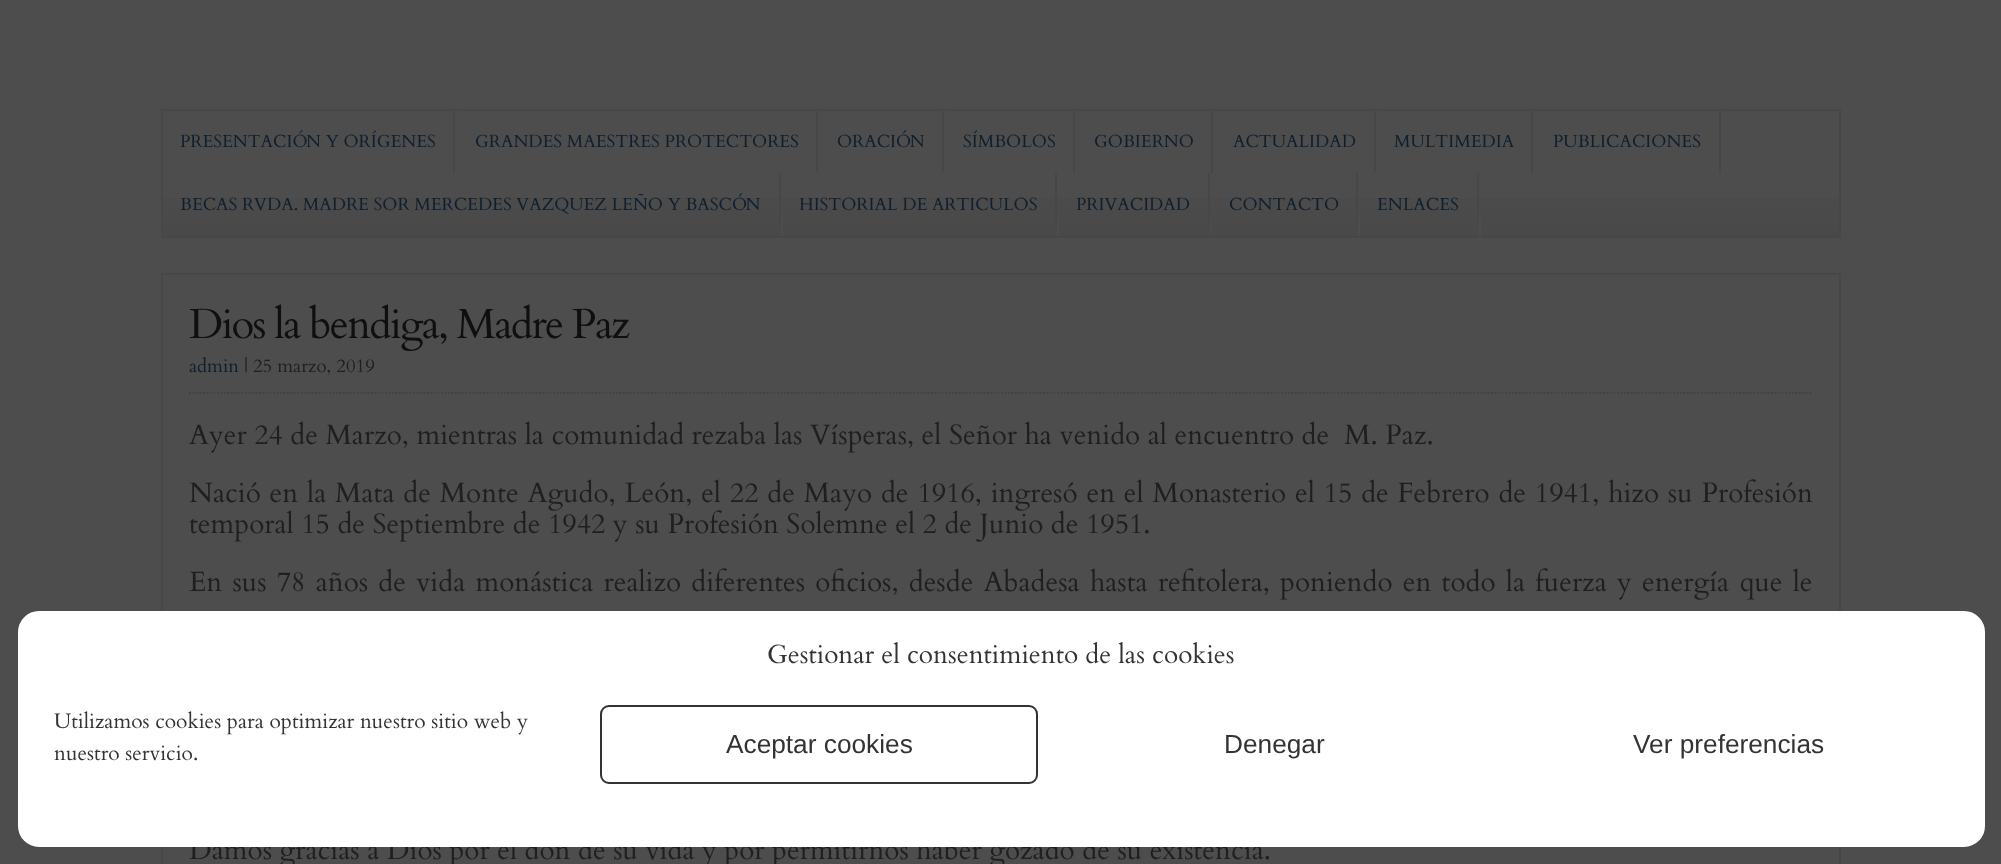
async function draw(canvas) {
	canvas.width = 2001;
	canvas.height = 864;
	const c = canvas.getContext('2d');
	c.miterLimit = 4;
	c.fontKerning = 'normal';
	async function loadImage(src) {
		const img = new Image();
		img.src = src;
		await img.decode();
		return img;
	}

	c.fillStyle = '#4d4d4d';
	c.fillRect(0, 0, 2001, 864);
	c.drawImage(await loadImage('img1.png'), 163, 198, 1676, 38);
	c.strokeStyle = '#474747';
	c.lineWidth = 2;
	c.strokeRect(162, 110, 1678, 127);
	c.fillRect(455, 110, 2, 1);
	c.fillStyle = '#474747';
	c.fillRect(453, 110, 2, 63);
	c.font = '17.5px Cardo';
	c.fillStyle = '#0f1f2e';
	c.fillText('PRESENTACIÓN Y ORÍGENES', 180, 147);
	c.fillStyle = '#4d4d4d';
	c.fillRect(818, 110, 1, 1);
	c.fillStyle = '#474747';
	c.fillRect(816, 110, 2, 63);
	c.fillStyle = '#0f1f2e';
	c.fillText('GRANDES MAESTRES PROTECTORES', 475, 147);
	c.fillStyle = '#4d4d4d';
	c.fillRect(944, 110, 1, 1);
	c.fillStyle = '#474747';
	c.fillRect(942, 110, 2, 63);
	c.fillStyle = '#0f1f2e';
	c.fillText('ORACIÓN', 837, 147);
	c.fillStyle = '#4d4d4d';
	c.fillRect(1075, 110, 2, 1);
	c.fillStyle = '#474747';
	c.fillRect(1073, 110, 2, 63);
	c.fillStyle = '#0f1f2e';
	c.fillText('SÍMBOLOS', 963, 147);
	c.fillStyle = '#4d4d4d';
	c.fillRect(1213, 110, 2, 1);
	c.fillStyle = '#474747';
	c.fillRect(1211, 110, 2, 63);
	c.fillStyle = '#0f1f2e';
	c.fillText('GOBIERNO', 1094, 147);
	c.fillStyle = '#4d4d4d';
	c.fillRect(1376, 110, 2, 1);
	c.fillStyle = '#474747';
	c.fillRect(1374, 110, 2, 63);
	c.fillStyle = '#0f1f2e';
	c.fillText('ACTUALIDAD', 1233, 147);
	c.fillStyle = '#4d4d4d';
	c.fillRect(1533, 110, 2, 1);
	c.fillStyle = '#474747';
	c.fillRect(1531, 110, 2, 63);
	c.fillStyle = '#0f1f2e';
	c.fillText('MULTIMEDIA', 1394, 147);
	c.fillStyle = '#4d4d4d';
	c.fillRect(1721, 110, 1, 1);
	c.fillStyle = '#474747';
	c.fillRect(1719, 110, 2, 63);
	c.fillStyle = '#0f1f2e';
	c.fillText('PUBLICACIONES', 1553, 147);
	c.fillStyle = '#4d4d4d';
	c.fillRect(781, 214, 2, 22);
	c.fillStyle = '#474747';
	c.fillRect(779, 173, 2, 53);
	c.fillStyle = '#0f1f2e';
	c.fillText('BECAS RVDA. MADRE SOR MERCEDES VAZQUEZ LEÑO Y BASCÓN', 180, 210);
	c.fillStyle = '#4d4d4d';
	c.fillRect(1057, 214, 2, 22);
	c.fillStyle = '#474747';
	c.fillRect(1055, 173, 2, 53);
	c.fillStyle = '#0f1f2e';
	c.fillText('HISTORIAL DE ARTICULOS', 799, 210);
	c.fillStyle = '#4d4d4d';
	c.fillRect(1210, 214, 1, 22);
	c.fillStyle = '#474747';
	c.fillRect(1208, 173, 2, 53);
	c.fillStyle = '#0f1f2e';
	c.fillText('PRIVACIDAD', 1076, 210);
	c.fillStyle = '#4d4d4d';
	c.fillRect(1358, 214, 2, 22);
	c.fillStyle = '#474747';
	c.fillRect(1356, 173, 2, 53);
	c.fillStyle = '#0f1f2e';
	c.fillText('CONTACTO', 1229, 210);
	c.fillStyle = '#4d4d4d';
	c.fillRect(1479, 214, 2, 22);
	c.fillStyle = '#474747';
	c.fillRect(1477, 173, 2, 53);
	c.fillStyle = '#0f1f2e';
	c.fillText('ENLACES', 1377, 210);
	c.strokeRect(162, 274, 1678, 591);
	c.letterSpacing = '-1.75px';
	c.font = '42px Cardo';
	c.fillStyle = '#0f0f0f';
	c.fillText('Dios la bendiga, Madre Paz', 189, 338);
	c.beginPath();
	c.moveTo(189, 393);
	c.lineTo(1813, 393);
	c.strokeStyle = '#424242';
	c.lineWidth = 1.8;
	c.setLineDash([1.75, 1.75]);
	c.stroke();
	c.letterSpacing = '0px';
	c.font = '18.75px Cardo';
	c.fillStyle = '#0f1f2e';
	c.fillText('admin', 189, 372);
	c.fillStyle = '#1f1f1f';
	c.fillText('| 25 marzo, 2019', 244, 372);
	c.font = '28px Cardo';
	c.fillText('Ayer 24 de Marzo, mientras la comunidad rezaba las Vísperas, el Señor ha venido al encuentro de  M. Paz.', 189, 444);
	c.wordSpacing = '1.3px';
	c.fillText('Nació en la Mata de Monte Agudo, León, el 22 de Mayo de 1916, ingresó en el Monasterio el 15 de Febrero de 1941, hizo su Profesión', 189, 502);
	c.wordSpacing = '0px';
	c.fillText('temporal 15 de Septiembre de 1942 y su Profesión Solemne el 2 de Junio de 1951.', 189, 533);
	c.wordSpacing = '2.7px';
	c.fillText('En sus 78 años de vida monástica realizo diferentes oficios, desde Abadesa hasta refitolera, poniendo en todo la fuerza y energía que le', 189, 591);
	c.wordSpacing = '0px';
	c.fillText('Damos gracias a Dios por el don de su vida y por permitirnos haber gozado de su existencia.', 189, 859);
	c.fillStyle = '#fff';
	c.beginPath();
	c.roundRect(19, 612, 1965, 234, 20);
	c.fill();
	c.strokeStyle = '#fff';
	c.lineWidth = 2;
	c.setLineDash([]);
	c.stroke();
	c.font = '26.25px Cardo';
	c.fillStyle = '#333';
	c.fillText('Gestionar el consentimiento de las cookies', 767, 663);
	c.font = '21px Cardo';
	c.fillText('Utilizamos cookies para optimizar nuestro sitio web y', 54, 728);
	c.fillText('nuestro servicio.', 54, 760);
	c.beginPath();
	c.roundRect(601, 706, 436, 77, 8);
	c.strokeStyle = '#333';
	c.stroke();
	c.font = '26.25px Liberation Sans';
	for (const [text, x, y] of [
		['Aceptar cookies', 726, 753],
		['Denegar', 1224, 753],
		['Ver preferencias', 1633, 753],
	]) {
		c.fillText(text, x, y);
	}
}

draw(document.querySelector('canvas'));
